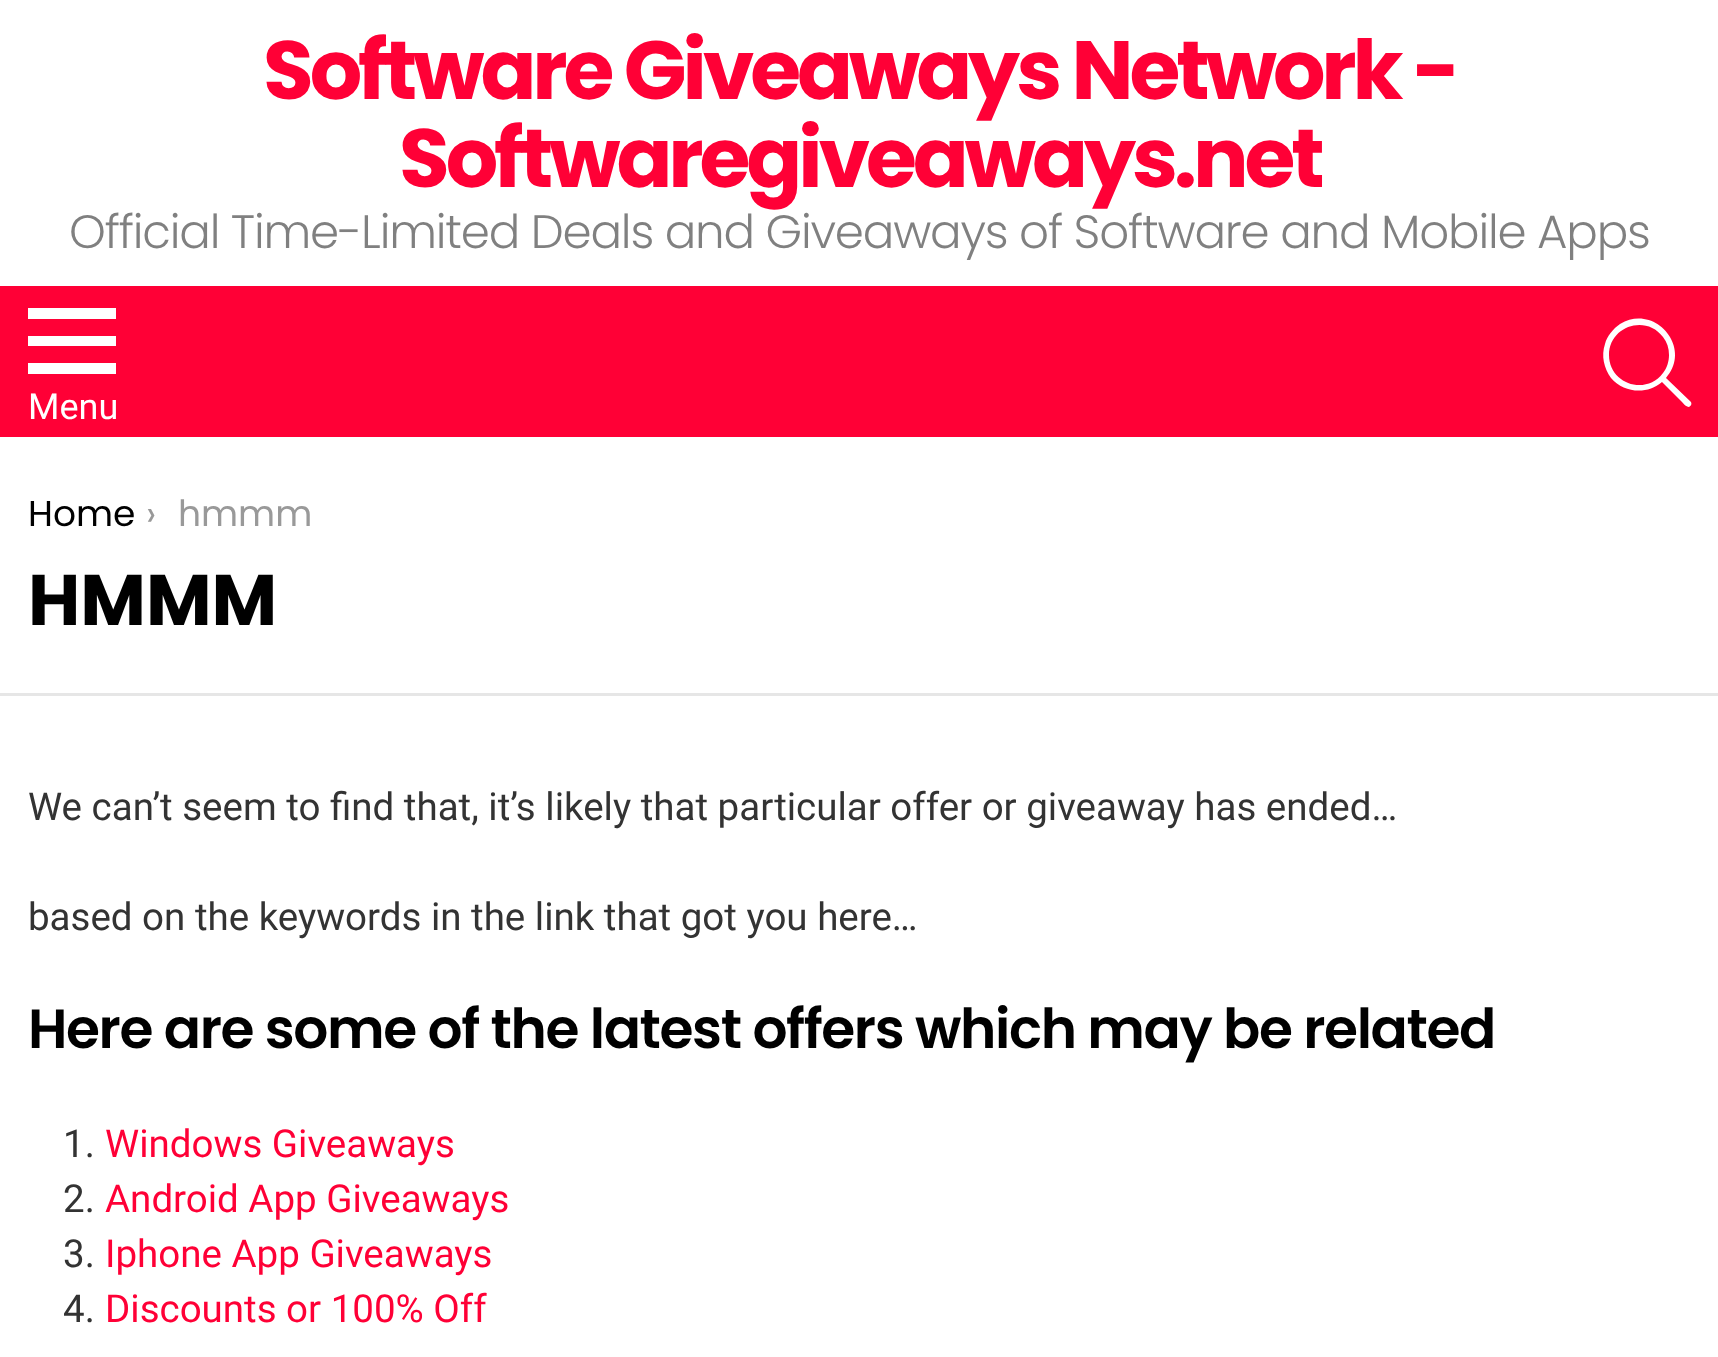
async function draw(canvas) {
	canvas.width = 1718;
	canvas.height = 1357;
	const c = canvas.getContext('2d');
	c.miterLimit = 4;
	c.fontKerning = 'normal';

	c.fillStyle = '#fff';
	c.fillRect(0, 0, 1718, 1357);
	c.letterSpacing = '-4.1px';
	c.font = 'bold 82.5px Poppins';
	c.fillStyle = '#ff0036';
	c.fillText('Software Giveaways Network -', 263, 99);
	c.fillText('Softwaregiveaways.net', 399, 187);
	c.letterSpacing = '-1.17px';
	c.font = '300 46.75px Poppins';
	c.fillStyle = '#808080';
	c.fillText('Official Time-Limited Deals and Giveaways of Software and Mobile Apps', 69, 248);
	c.fillStyle = '#ff0036';
	c.fillRect(0, 286, 1718, 151);
	c.fillStyle = '#fff';
	c.beginPath();
	c.moveTo(28, 308);
	c.lineTo(116, 308);
	c.lineTo(116, 319);
	c.lineTo(28, 319);
	c.closePath();
	c.moveTo(28, 336);
	c.lineTo(116, 336);
	c.lineTo(116, 346);
	c.lineTo(28, 346);
	c.closePath();
	c.moveTo(28, 363);
	c.lineTo(116, 363);
	c.lineTo(116, 374);
	c.lineTo(28, 374);
	c.closePath();
	c.fill();
	c.letterSpacing = '0px';
	c.font = '36px Roboto';
	c.fillText('Menu', 28, 419);
	c.beginPath();
	c.moveTo(1691, 402);
	c.lineTo(1666, 378);
	c.bezierCurveTo(1693, 348, 1655, 303, 1620, 324);
	c.bezierCurveTo(1613, 329, 1607, 336, 1605, 344);
	c.bezierCurveTo(1601, 356, 1604, 368, 1611, 378);
	c.bezierCurveTo(1624, 393, 1647, 395, 1662, 382);
	c.lineTo(1682, 402);
	c.bezierCurveTo(1683, 403, 1686, 407, 1689, 407);
	c.bezierCurveTo(1691, 406, 1692, 404, 1691, 402);
	c.closePath();
	c.moveTo(1609, 355);
	c.bezierCurveTo(1609, 326, 1646, 314, 1663, 337);
	c.bezierCurveTo(1667, 342, 1669, 348, 1669, 355);
	c.bezierCurveTo(1669, 361, 1667, 368, 1663, 373);
	c.bezierCurveTo(1646, 396, 1609, 384, 1609, 355);
	c.closePath();
	c.fill();
	c.font = '36px Poppins';
	c.fillStyle = '#000';
	c.fillText('Home', 28, 526);
	c.fillStyle = '#999';
	c.fillText('›', 146, 526);
	c.fillText('hmmm', 178, 526);
	c.font = 'bold 71.5px Poppins';
	c.fillStyle = '#000';
	c.fillText('HMMM', 28, 625);
	c.fillStyle = '#e6e6e6';
	c.fillRect(0, 693, 1718, 3);
	c.font = '38.5px Roboto';
	c.fillStyle = '#333';
	c.fillText('We can’t seem to find that, it’s likely that particular offer or giveaway has ended…', 28, 820);
	c.fillText('based on the keywords in the link that got you here…', 28, 930);
	c.letterSpacing = '-1.38px';
	c.font = '600 55px Poppins';
	c.fillStyle = '#000';
	c.fillText('Here are some of the latest offers which may be related', 28, 1048);
	c.letterSpacing = '0px';
	c.font = '38.5px Roboto';
	c.fillStyle = '#333';
	c.fillText('1.', 63, 1157);
	c.fillStyle = '#ff0036';
	c.fillText('Windows Giveaways', 105, 1157);
	c.fillStyle = '#333';
	c.fillText('2.', 63, 1212);
	c.fillStyle = '#ff0036';
	c.fillText('Android App Giveaways', 105, 1212);
	c.fillStyle = '#333';
	c.fillText('3.', 63, 1267);
	c.fillStyle = '#ff0036';
	c.fillText('Iphone App Giveaways', 105, 1267);
	c.fillStyle = '#333';
	c.fillText('4.', 63, 1322);
	c.fillStyle = '#ff0036';
	c.fillText('Discounts or 100% Off', 105, 1322);
}

draw(document.querySelector('canvas'));
